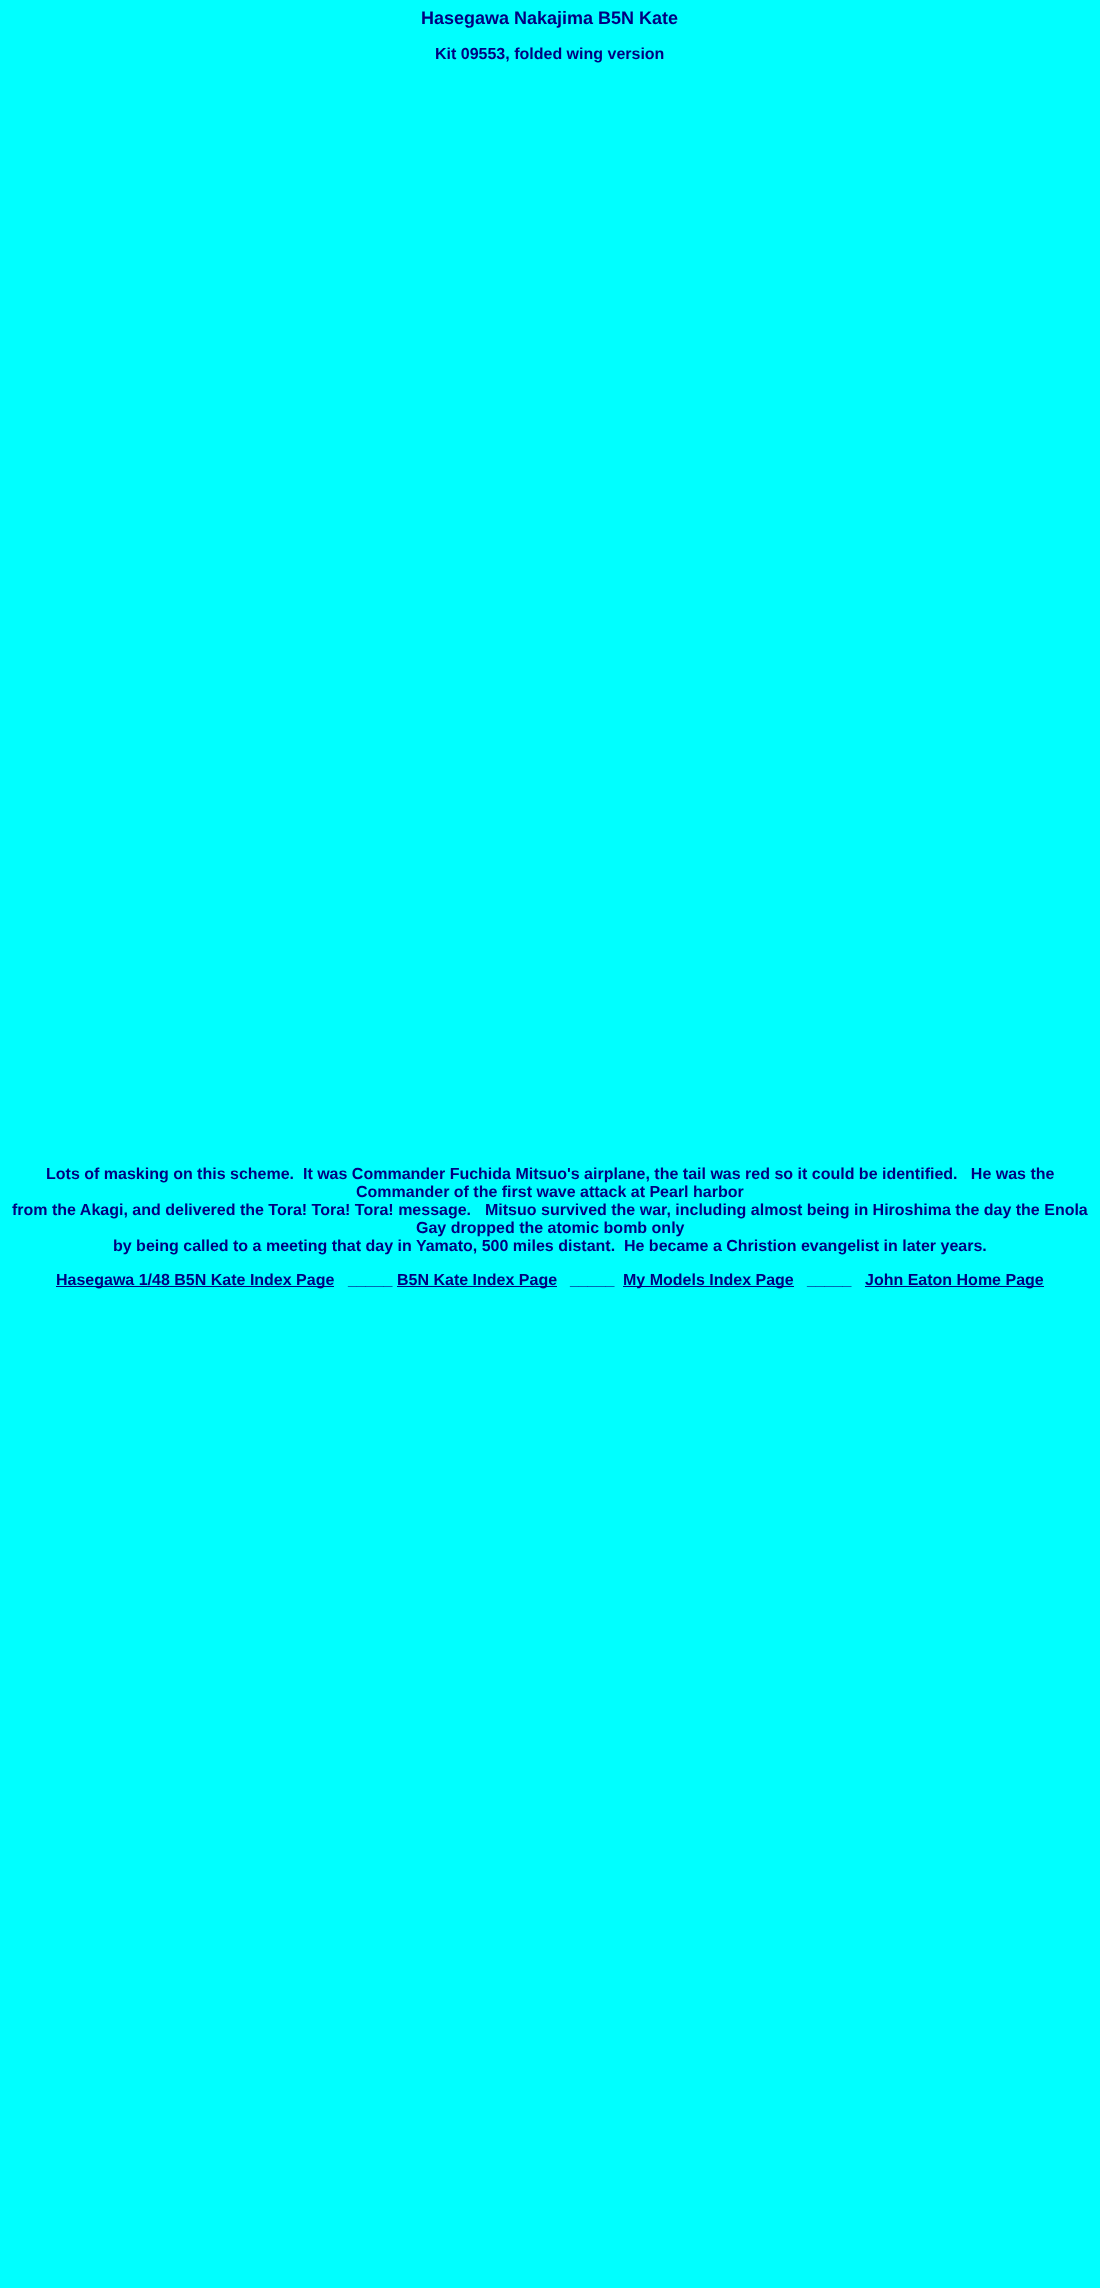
async function draw(canvas) {
	canvas.width = 1100;
	canvas.height = 2288;
	const c = canvas.getContext('2d');
	c.miterLimit = 4;
	c.fontKerning = 'normal';

	c.fillStyle = '#0ff';
	c.fillRect(0, 0, 1100, 2288);
	c.font = 'bold 18px Liberation Sans';
	c.fillStyle = '#000080';
	c.fillText('Hasegawa Nakajima B5N Kate', 421, 24);
	c.font = 'bold 16px Liberation Sans';
	for (const [text, x, y] of [
		['Kit 09553, folded wing version', 435, 59],
		['Lots of masking on this scheme.  It was Commander Fuchida Mitsuo\'s airplane, the tail was red so it could be identified.   He was the', 46, 1179],
		['Commander of the first wave attack at Pearl harbor', 356, 1197],
		['from the Akagi, and delivered the Tora! Tora! Tora! message.', 12, 1215],
		['Mitsuo survived the war, including almost being in Hiroshima the day the Enola', 485, 1215],
		['Gay dropped the atomic bomb only', 416, 1233],
		['by being called to a meeting that day in Yamato, 500 miles distant.  He became a Christion evangelist in later years.', 113, 1251],
	]) {
		c.fillText(text, x, y);
	}
	c.fillRect(56, 1286, 278, 1);
	c.fillText('Hasegawa 1/48 B5N Kate Index Page', 56, 1285);
	c.fillText('_____', 348, 1285);
	c.fillRect(397, 1286, 160, 1);
	c.fillText('B5N Kate Index Page', 397, 1285);
	c.fillText('_____', 570, 1285);
	c.fillRect(623, 1286, 171, 1);
	c.fillText('My Models Index Page', 623, 1285);
	c.fillText('_____', 807, 1285);
	c.fillRect(865, 1286, 179, 1);
	c.fillText('John Eaton Home Page', 865, 1285);
}

draw(document.querySelector('canvas'));
